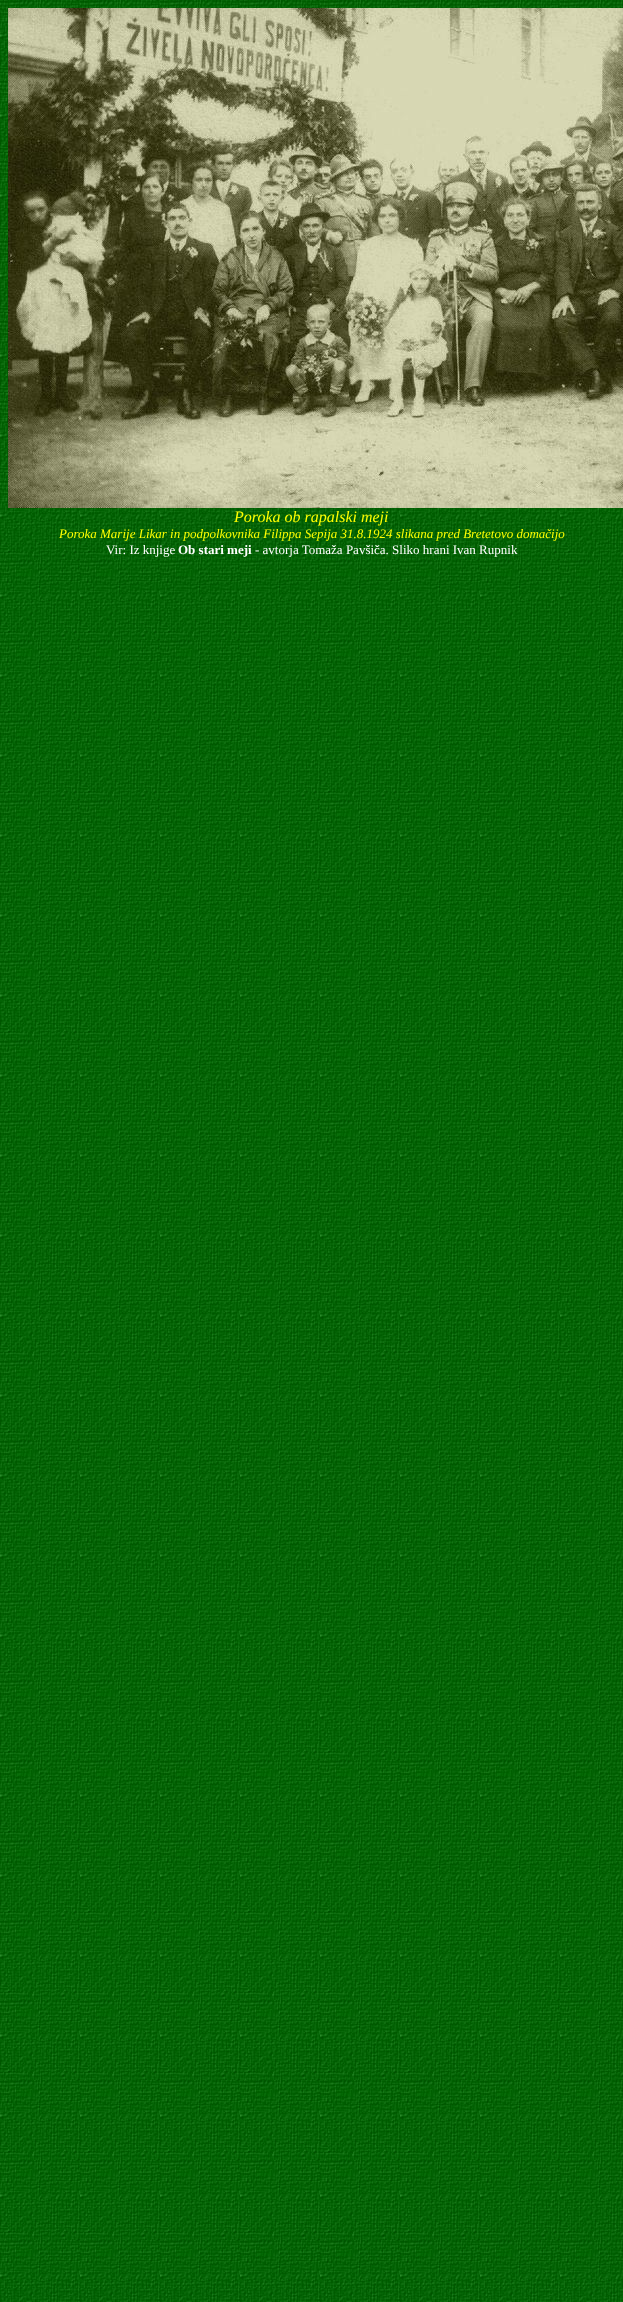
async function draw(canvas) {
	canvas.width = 623;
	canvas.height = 2302;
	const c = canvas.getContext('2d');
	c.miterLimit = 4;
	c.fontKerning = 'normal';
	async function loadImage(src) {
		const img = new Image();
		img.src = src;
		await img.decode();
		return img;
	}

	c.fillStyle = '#fff';
	c.fillRect(0, 0, 623, 2302);
	c.drawImage(await loadImage('img1.png'), 0, 0, 623, 2302);
	c.drawImage(await loadImage('img2.png'), 8, 8, 615, 500);
	c.font = 'italic 16px Liberation Serif';
	c.fillStyle = '#ff0';
	c.fillText('Poroka ob rapalski meji', 234, 522);
	c.font = 'italic 13px Liberation Serif';
	c.fillText('Poroka Marije Likar in podpolkovnika Filippa Sepija 31.8.1924 slikana pred Bretetovo domačijo', 59, 538);
	c.font = '13px Liberation Serif';
	c.fillStyle = '#fff';
	c.fillText('Vir: Iz knjige', 106, 554);
	c.font = 'bold 13px Liberation Serif';
	c.fillText('Ob stari meji', 178, 554);
	c.font = '13px Liberation Serif';
	c.fillText('- avtorja Tomaža Pavšiča. Sliko hrani Ivan Rupnik', 255, 554);
}

draw(document.querySelector('canvas'));
